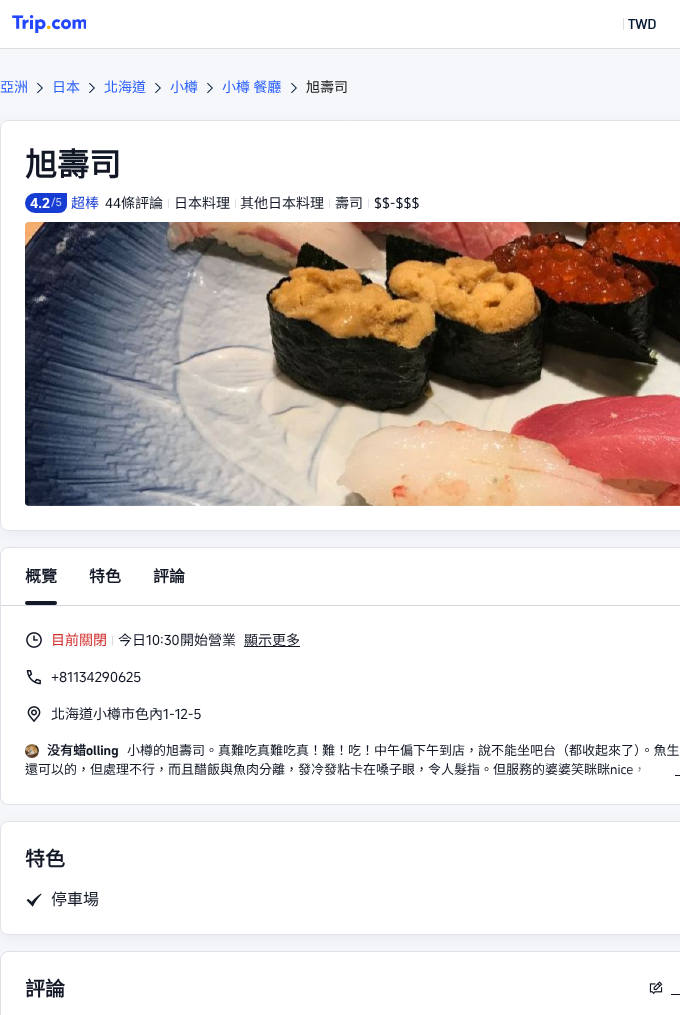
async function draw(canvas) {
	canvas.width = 680;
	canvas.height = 1015;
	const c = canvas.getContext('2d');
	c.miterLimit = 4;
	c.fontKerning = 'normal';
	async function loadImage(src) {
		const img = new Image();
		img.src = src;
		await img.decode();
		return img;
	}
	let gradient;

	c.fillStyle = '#f6f7fa';
	c.fillRect(0, 0, 680, 1015);
	c.fillStyle = '#fff';
	c.fillRect(0, 0, 680, 48);
	c.fillStyle = '#ddd';
	c.fillRect(0, 48, 680, 1);
	c.drawImage(await loadImage('img1.png'), 12, 15, 74, 18);
	c.fillStyle = '#dadfe6';
	c.fillRect(623, 18, 1, 12);
	c.font = '500 14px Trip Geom';
	c.fillStyle = '#051a37';
	c.fillText('TWD', 628, 29);
	c.font = '14px Noto Sans CJK TC';
	c.fillStyle = '#2c61fe';
	c.fillText('亞洲', 0, 92);
	c.drawImage(await loadImage('img2.png'), 37, 82, 6, 12);
	c.fillText('日本', 52, 92);
	c.drawImage(await loadImage('img2.png'), 89, 82, 6, 12);
	c.fillText('北海道', 104, 92);
	c.drawImage(await loadImage('img2.png'), 155, 82, 6, 12);
	c.fillText('小樽', 170, 92);
	c.drawImage(await loadImage('img2.png'), 207, 82, 6, 12);
	c.fillText('小樽 餐廳', 222, 92);
	c.drawImage(await loadImage('img2.png'), 291, 82, 6, 12);
	c.fillStyle = '#151515';
	c.fillText('旭壽司', 306, 92);
	c.fillStyle = '#0f294d0f';
	c.filter = 'blur(8px)';
	c.beginPath();
	c.roundRect(0, 124, 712, 411, 8);
	c.fill();
	c.filter = 'none';
	c.fillStyle = '#fff';
	c.beginPath();
	c.roundRect(0, 120, 680, 411, [8, 0, 0, 8]);
	c.fill();
	c.beginPath();
	c.roundRect(0.5, 120.5, 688, 410, 7.5);
	c.strokeStyle = '#d4d7deb3';
	c.stroke();
	c.font = 'bold 32px Noto Sans CJK TC';
	c.fillStyle = '#121826';
	c.fillText('旭壽司', 25, 176);
	c.fillStyle = '#173cd2';
	c.beginPath();
	c.roundRect(25, 193, 42, 20, [10, 0, 8, 10]);
	c.fill();
	c.font = 'bold 14px Trip Geom';
	c.fillStyle = '#fff';
	c.fillText('4.2', 30, 208);
	c.font = '500 11px Trip Geom';
	c.fillStyle = '#b9c5f2';
	c.fillText('/5', 51, 206);
	c.font = '14px Noto Sans CJK TC';
	c.fillStyle = '#173cd2';
	c.fillText('超棒', 71, 208);
	c.font = '14px Trip Geom';
	c.fillStyle = '#121826';
	c.fillText('44', 105, 208);
	c.font = '14px Noto Sans CJK TC';
	c.fillText('條評論', 121, 208);
	c.font = '10px Trip Geom';
	c.fillStyle = '#d4d7de';
	c.fillText('|', 167, 207);
	c.font = '14px Noto Sans CJK TC';
	c.fillStyle = '#121826';
	c.fillText('日本料理', 174, 208);
	c.font = '10px Trip Geom';
	c.fillStyle = '#d4d7de';
	c.fillText('|', 234, 207);
	c.font = '14px Noto Sans CJK TC';
	c.fillStyle = '#121826';
	c.fillText('其他日本料理', 240, 208);
	c.font = '10px Trip Geom';
	c.fillStyle = '#d4d7de';
	c.fillText('|', 328, 207);
	c.font = '14px Noto Sans CJK TC';
	c.fillStyle = '#121826';
	c.fillText('壽司', 335, 208);
	c.font = '10px Trip Geom';
	c.fillStyle = '#d4d7de';
	c.fillText('|', 367, 207);
	c.font = '14px Trip Geom';
	c.fillStyle = '#121826';
	c.fillText('$$-$$$', 374, 208);
	c.drawImage(await loadImage('img3.png'), 25, 222, 655, 284);
	c.beginPath();
	c.roundRect(0.5, 547.5, 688, 257, 7.5);
	c.stroke();
	c.fillStyle = '#fff';
	c.beginPath();
	c.roundRect(1, 548, 679, 58, [8, 0, 0, 0]);
	c.fill();
	c.fillStyle = '#d4d7de';
	c.fillRect(1, 605, 679, 1);
	c.font = 'bold 16px Noto Sans CJK TC';
	c.fillStyle = '#121826';
	c.fillText('概覽', 25, 582);
	c.beginPath();
	c.roundRect(25, 601, 32, 4, 2);
	c.fill();
	c.fillText('特色', 89, 582);
	c.fillText('評論', 153, 582);
	c.fillStyle = '#fff';
	c.beginPath();
	c.roundRect(1, 606, 679, 198, [0, 0, 0, 8]);
	c.fill();
	c.drawImage(await loadImage('img4.png'), 26, 632, 16, 16);
	c.font = '14px Noto Sans CJK TC';
	c.fillStyle = '#d02c2a';
	c.fillText('目前關閉', 51, 645);
	c.font = '12px Trip Geom';
	c.fillStyle = '#d4d7de';
	c.fillText('|', 111, 645);
	c.font = '14px Noto Sans CJK TC';
	c.fillStyle = '#121826';
	c.fillText('今日', 118, 645);
	c.font = '14px Trip Geom';
	c.fillText('10:30', 146, 645);
	c.font = '14px Noto Sans CJK TC';
	c.fillText('開始營業', 180, 645);
	c.fillRect(244, 646, 56, 1);
	c.fillText('顯示更多', 244, 645);
	c.drawImage(await loadImage('img5.png'), 26, 670, 15, 15);
	c.font = '14px Trip Geom';
	c.fillText('+81134290625', 51, 682);
	c.drawImage(await loadImage('img6.png'), 27, 706, 14, 17);
	c.font = '14px Noto Sans CJK TC';
	c.fillText('北海道小樽市色內', 51, 719);
	c.font = '14px Trip Geom';
	c.fillText('1-12-5', 163, 719);
	c.drawImage(await loadImage('img7.png'), 25, 744, 14, 14);
	c.font = 'bold 13px Noto Sans CJK TC';
	c.fillText('没有蜡', 47, 755);
	c.font = 'bold 13px Trip Geom';
	c.fillText('olling', 86, 755);
	c.font = '13px Noto Sans CJK TC';
	c.fillText('小樽的旭壽司。真難吃真難吃真！難！吃！中午偏下午到店，說不能坐吧台（都收起來了）。魚生', 127, 755);
	c.fillText('還可以的，但處理不行，而且醋飯與魚肉分離，發冷發粘卡在嗓子眼，令人髮指。但服務的婆婆笑眯眯', 25, 774);
	c.font = '13px Trip Geom';
	c.fillText('nice', 610, 774);
	c.font = '13px Noto Sans CJK TC';
	c.fillText('，', 633, 774);
	gradient = c.createLinearGradient(625, 770, 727, 770);
	gradient.addColorStop(0, '#ffffff00');
	gradient.addColorStop(0.3, '#fff');
	gradient.addColorStop(1, '#fff');
	c.fillStyle = gradient;
	c.fillRect(627, 767, 15, 8);
	c.fillStyle = '#121826';
	c.fillRect(675, 775, 5, 1);
	c.fillStyle = '#0f294d0f';
	c.filter = 'blur(8px)';
	c.beginPath();
	c.roundRect(0, 825, 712, 114, 8);
	c.fill();
	c.filter = 'none';
	c.fillStyle = '#fff';
	c.beginPath();
	c.roundRect(0, 821, 680, 114, [8, 0, 0, 8]);
	c.fill();
	c.beginPath();
	c.roundRect(0.5, 821.5, 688, 113, 7.5);
	c.stroke();
	c.font = 'bold 20px Noto Sans CJK TC';
	c.fillStyle = '#121826';
	c.fillText('特色', 25, 866);
	c.drawImage(await loadImage('img8.png'), 26, 893, 16, 14);
	c.font = '16px Noto Sans CJK TC';
	c.fillText('停車場', 51, 905);
	c.beginPath();
	c.roundRect(0.5, 951.5, 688, 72, 7.5);
	c.strokeStyle = '#dee0e6';
	c.stroke();
	c.fillStyle = '#fff';
	c.beginPath();
	c.roundRect(1, 952, 679, 63, [8, 0, 0, 0]);
	c.fill();
	c.font = 'bold 20px Noto Sans CJK TC';
	c.fillStyle = '#121826';
	c.fillText('評論', 25, 996);
	c.drawImage(await loadImage('img9.png'), 649, 981, 14, 14);
	c.fillRect(671, 994, 9, 1);
}

draw(document.querySelector('canvas'));
